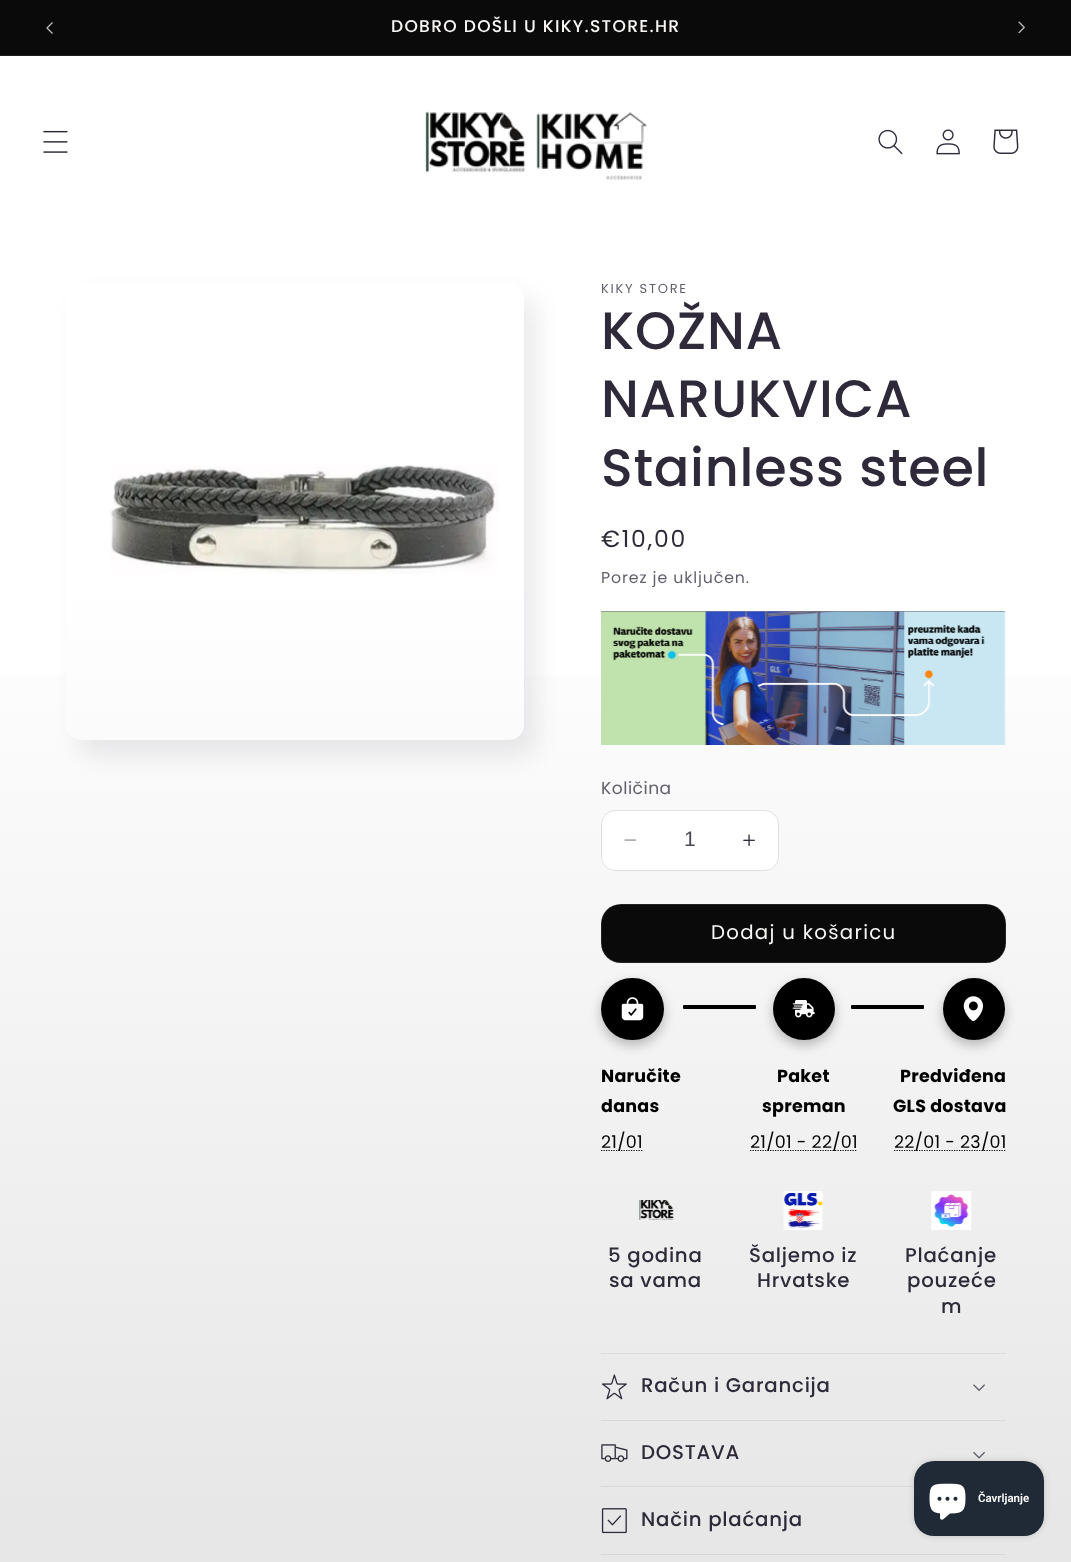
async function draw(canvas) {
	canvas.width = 1071;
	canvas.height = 1562;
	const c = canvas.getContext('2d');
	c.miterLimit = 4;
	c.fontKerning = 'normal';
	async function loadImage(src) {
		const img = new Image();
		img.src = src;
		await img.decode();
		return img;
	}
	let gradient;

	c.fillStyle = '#fff';
	c.fillRect(0, 0, 1071, 1562);
	gradient = c.createLinearGradient(536, 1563, 536, 0);
	gradient.addColorStop(0.03, '#e7e7e7');
	gradient.addColorStop(0.63, '#fff');
	c.fillStyle = gradient;
	c.fillRect(0, 676, 1071, 886);
	c.fillStyle = '#090a09';
	c.fillRect(0, 0, 1071, 55);
	c.fillStyle = '#1c1d1c';
	c.fillRect(0, 55, 1071, 1);
	c.drawImage(await loadImage('img1.png'), 46, 22, 7, 12);
	c.letterSpacing = '1.3px';
	c.font = '500 17.1px Poppins';
	c.fillStyle = '#f9f7f6';
	c.fillText('DOBRO DOŠLI U KIKY.STORE.HR', 391, 32);
	c.drawImage(await loadImage('img2.png'), 1018, 21, 7, 13);
	c.drawImage(await loadImage('img3.png'), 43, 130, 25, 23);
	c.drawImage(await loadImage('img4.png'), 425, 111, 222, 69);
	c.drawImage(await loadImage('img5.png'), 878, 129, 25, 26);
	c.drawImage(await loadImage('img6.png'), 936, 129, 24, 26);
	c.drawImage(await loadImage('img7.png'), 993, 129, 26, 25);
	c.fillStyle = '#2e2a391a';
	c.filter = 'blur(12.5px)';
	c.beginPath();
	c.roundRect(79, 298, 457, 457, 15);
	c.fill();
	c.filter = 'none';
	gradient = c.createLinearGradient(536, 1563, 536, 0);
	gradient.addColorStop(0.03, '#e7e7e7');
	gradient.addColorStop(0.63, '#fff');
	c.fillStyle = gradient;
	c.beginPath();
	c.roundRect(66, 283, 458, 457, 15);
	c.fill();
	c.drawImage(await loadImage('img8.png'), 110, 465, 389, 109);
	c.letterSpacing = '1.75px';
	c.font = '13px Poppins';
	c.fillStyle = '#625f6b';
	c.fillText('KIKY STORE', 601, 293);
	c.letterSpacing = '0.75px';
	c.font = '500 52.5px Poppins';
	c.fillStyle = '#2e2a39';
	for (const [text, x, y] of [
		['KOŽNA', 601, 349],
		['NARUKVICA', 601, 417],
		['Stainless steel', 601, 486],
	]) {
		c.fillText(text, x, y);
	}
	c.letterSpacing = '1.75px';
	c.font = '23.5px Poppins';
	c.fillText('€10,00', 601, 547);
	c.letterSpacing = '0.9px';
	c.font = '15.75px Poppins';
	c.fillStyle = '#625f6b';
	c.fillText('Porez je uključen.', 601, 583);
	c.drawImage(await loadImage('img9.png'), 601, 611, 405, 134);
	c.letterSpacing = '0.5px';
	c.font = '17.1px Poppins';
	c.fillText('Količina', 601, 794);
	c.fillStyle = '#fff';
	c.beginPath();
	c.roundRect(601, 810, 178, 61, 14);
	c.fill();
	c.drawImage(await loadImage('img10.png'), 624, 839, 13, 2);
	c.drawImage(await loadImage('img11.png'), 743, 834, 12, 12);
	c.beginPath();
	c.roundRect(601.5, 810.5, 177, 60, 13.5);
	c.strokeStyle = '#2e2a3926';
	c.stroke();
	c.letterSpacing = '0px';
	c.font = '21px Liberation Sans';
	c.fillStyle = '#4d4a57';
	c.fillText('1', 684, 846);
	c.fillStyle = '#090a09';
	c.beginPath();
	c.roundRect(601, 904, 405, 59, 20);
	c.fill();
	c.beginPath();
	c.roundRect(601.2, 904.2, 404.6, 58.6, 19.8);
	c.strokeStyle = '#f9f7f666';
	c.lineWidth = 0.4;
	c.stroke();
	c.letterSpacing = '1.3px';
	c.font = '19.75px Poppins';
	c.fillStyle = '#f9f7f6';
	c.fillText('Dodaj u košaricu', 711, 939);
	c.fillStyle = '#00000040';
	c.filter = 'blur(6px)';
	c.beginPath();
	c.roundRect(601, 983, 63, 62, 31);
	c.fill();
	c.filter = 'none';
	c.fillStyle = '#000';
	c.beginPath();
	c.roundRect(601, 978, 63, 62, 31);
	c.fill();
	c.drawImage(await loadImage('img12.png'), 621, 997, 23, 24);
	c.letterSpacing = '0.25px';
	c.font = 'bold 17.5px Poppins';
	c.fillText('Naručite', 601, 1082);
	c.fillText('danas', 601, 1112);
	c.beginPath();
	c.moveTo(601, 1150.5);
	c.lineTo(643, 1150.5);
	c.strokeStyle = '#000';
	c.lineWidth = 1.2;
	c.setLineDash([1.25, 1.25]);
	c.stroke();
	c.font = '17.5px Poppins';
	c.fillText('21/01', 601, 1148);
	c.fillStyle = '#00000040';
	c.filter = 'blur(6px)';
	c.beginPath();
	c.roundRect(773, 983, 62, 62, 31);
	c.fill();
	c.filter = 'none';
	c.fillStyle = '#000';
	c.beginPath();
	c.roundRect(683, 1005, 73, 4, 1);
	c.fill();
	c.beginPath();
	c.arc(804, 1009, 31, 0, 2 * Math.PI);
	c.fill();
	c.drawImage(await loadImage('img13.png'), 792, 1000, 23, 18);
	c.font = 'bold 17.5px Poppins';
	c.fillText('Paket', 777, 1082);
	c.fillText('spreman', 762, 1112);
	c.beginPath();
	c.moveTo(750, 1150.5);
	c.lineTo(857, 1150.5);
	c.stroke();
	c.font = '17.5px Poppins';
	c.fillText('21/01 - 22/01', 750, 1148);
	c.beginPath();
	c.roundRect(851, 1005, 73, 4, 1);
	c.fill();
	c.fillStyle = '#00000040';
	c.filter = 'blur(6px)';
	c.beginPath();
	c.roundRect(943, 983, 62, 62, 31);
	c.fill();
	c.filter = 'none';
	c.fillStyle = '#000';
	c.beginPath();
	c.arc(974, 1009, 31, 0, 2 * Math.PI);
	c.fill();
	c.drawImage(await loadImage('img14.png'), 963, 996, 20, 25);
	c.font = 'bold 17.5px Poppins';
	c.fillText('Predviđena', 900, 1082);
	c.fillText('GLS dostava', 893, 1112);
	c.beginPath();
	c.moveTo(894, 1150.5);
	c.lineTo(1005.5, 1150.5);
	c.stroke();
	c.font = '17.5px Poppins';
	c.fillText('22/01 - 23/01', 894, 1148);
	c.drawImage(await loadImage('img15.png'), 639, 1199, 35, 21);
	c.letterSpacing = '0.75px';
	c.font = '500 19.75px Poppins';
	c.fillStyle = '#2e2a39';
	c.fillText('5 godina', 608, 1262);
	c.fillText('sa vama', 609, 1287);
	c.drawImage(await loadImage('img16.png'), 783, 1191, 41, 39);
	c.fillText('Šaljemo iz', 749, 1262);
	c.fillText('Hrvatske', 757, 1287);
	c.drawImage(await loadImage('img17.png'), 931, 1191, 41, 39);
	for (const [text, x, y] of [
		['Plaćanje', 905, 1262],
		['pouzeće', 907, 1287],
		['m', 941, 1313],
	]) {
		c.fillText(text, x, y);
	}
	c.fillStyle = '#dcdcdd';
	c.fillRect(601, 1353, 405, 1);
	c.fillStyle = '#dadadb';
	c.fillRect(601, 1420, 405, 1);
	c.drawImage(await loadImage('img18.png'), 601, 1374, 26, 26);
	c.fillStyle = '#2e2a39';
	c.fillText('Račun i Garancija', 641, 1392);
	c.drawImage(await loadImage('img19.png'), 973, 1384, 12, 7);
	c.fillStyle = '#d9d9da';
	c.fillRect(601, 1486, 313, 1);
	c.drawImage(await loadImage('img20.png'), 601, 1444, 27, 18);
	c.fillStyle = '#2e2a39';
	c.fillText('DOSTAVA', 641, 1459);
	c.drawImage(await loadImage('img21.png'), 973, 1452, 12, 7);
	c.fillStyle = '#d8d8d9';
	c.fillRect(601, 1554, 405, 1);
	c.drawImage(await loadImage('img22.png'), 601, 1508, 26, 26);
	c.fillStyle = '#2e2a39';
	c.fillText('Način plaćanja', 641, 1526);
	c.fillStyle = '#00000026';
	c.filter = 'blur(3px)';
	c.beginPath();
	c.roundRect(914, 1461, 130, 75, 20);
	c.fill();
	c.filter = 'none';
	c.fillStyle = '#202a36';
	c.beginPath();
	c.roundRect(914, 1461, 130, 75, 20);
	c.fill();
	c.drawImage(await loadImage('img23.png'), 929, 1483, 37, 37);
	c.letterSpacing = '0px';
	c.font = '600 11.5px Roboto';
	c.fillStyle = '#fff';
	c.fillText('Čavrljanje', 978, 1502);
}

draw(document.querySelector('canvas'));
